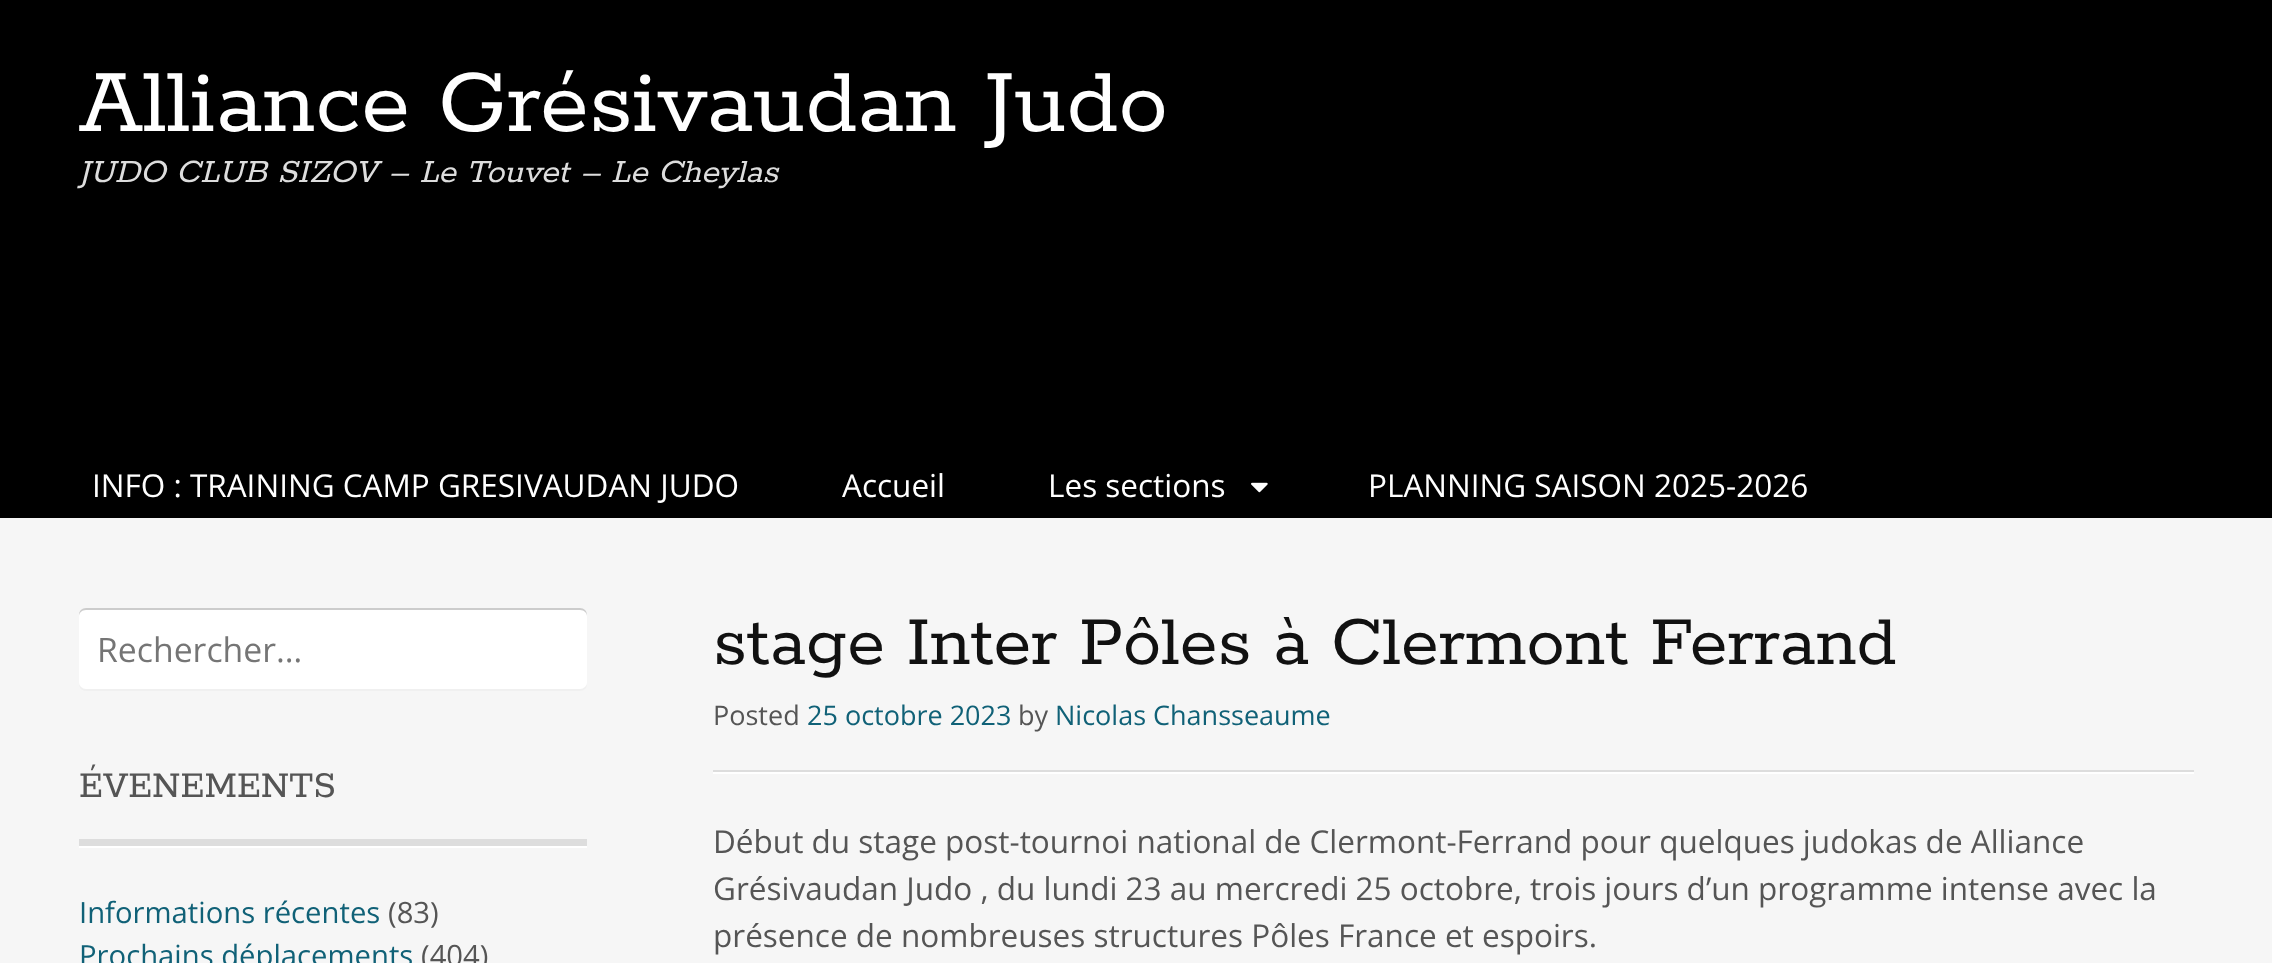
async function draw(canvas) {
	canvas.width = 2272;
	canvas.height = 963;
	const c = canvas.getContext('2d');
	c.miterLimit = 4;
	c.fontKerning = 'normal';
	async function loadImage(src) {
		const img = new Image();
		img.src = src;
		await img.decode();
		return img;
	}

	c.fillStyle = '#f6f6f6';
	c.fillRect(0, 0, 2272, 963);
	c.fillStyle = '#000';
	c.fillRect(0, 0, 2272, 518);
	c.font = '99px Rokkitt';
	c.fillStyle = '#fff';
	c.fillText('Alliance Grésivaudan Judo', 79, 131);
	c.font = 'italic 36px Rokkitt';
	c.fillStyle = '#ddd';
	c.fillText('JUDO CLUB SIZOV – Le Touvet – Le Cheylas', 79, 182);
	c.font = '31.5px Open Sans';
	c.fillStyle = '#fff';
	for (const [text, x, y] of [
		['INFO : TRAINING CAMP GRESIVAUDAN JUDO', 92, 497],
		['Accueil', 842, 497],
		['Les sections', 1048, 497],
	]) {
		c.fillText(text, x, y);
	}
	c.drawImage(await loadImage('img1.png'), 1251, 482, 17, 11);
	c.fillText('PLANNING SAISON 2025-2026', 1368, 497);
	c.fillStyle = '#f0f0f0';
	c.beginPath();
	c.moveTo(79, 684);
	c.bezierCurveTo(79, 688, 82, 691, 86, 691);
	c.lineTo(580, 691);
	c.bezierCurveTo(584, 691, 587, 688, 587, 684);
	c.bezierCurveTo(586, 686, 584, 688, 580, 688);
	c.lineTo(86, 688);
	c.bezierCurveTo(82, 688, 80, 686, 79, 684);
	c.closePath();
	c.fill();
	c.fillStyle = '#fff';
	c.beginPath();
	c.roundRect(79, 608, 508, 81, 7);
	c.fill();
	c.fillStyle = '#00000033';
	c.beginPath();
	c.moveTo(86, 610);
	c.lineTo(580, 610);
	c.bezierCurveTo(584, 610, 587, 613, 587, 616);
	c.lineTo(587, 615);
	c.bezierCurveTo(587, 611, 584, 608, 580, 608);
	c.lineTo(86, 608);
	c.bezierCurveTo(82, 608, 79, 611, 79, 615);
	c.lineTo(79, 616);
	c.bezierCurveTo(79, 613, 82, 610, 86, 610);
	c.closePath();
	c.fill();
	c.font = '33.75px Open Sans';
	c.fillStyle = '#757575';
	c.fillText('Rechercher…', 97, 662);
	c.fillStyle = '#fff';
	c.fillRect(79, 846, 508, 2);
	c.fillStyle = '#ddd';
	c.fillRect(79, 839, 508, 7);
	c.font = '40.5px Rokkitt';
	c.fillStyle = '#555';
	c.fillText('ÉVENEMENTS', 79, 797);
	c.font = '29.25px Open Sans';
	c.fillStyle = '#106177';
	c.fillText('Informations récentes', 79, 923);
	c.fillStyle = '#555';
	c.fillText('(83)', 388, 923);
	c.fillStyle = '#106177';
	c.fillText('Prochains déplacements', 79, 966);
	c.fillStyle = '#555';
	c.fillText('(404)', 421, 966);
	c.fillStyle = '#fff';
	c.beginPath();
	c.moveTo(713, 610);
	c.lineTo(713, 774);
	c.lineTo(2194, 774);
	c.lineTo(2194, 610);
	c.lineTo(2194, 772);
	c.lineTo(713, 772);
	c.closePath();
	c.fill();
	c.fillStyle = '#ddd';
	c.fillRect(713, 770, 1481, 2);
	c.font = '76.5px Rokkitt';
	c.fillStyle = '#111';
	c.fillText('stage Inter Pôles à Clermont Ferrand', 713, 664);
	c.font = '27px Open Sans';
	c.fillStyle = '#555';
	c.fillText('Posted', 713, 725);
	c.fillStyle = '#106177';
	c.fillText('25 octobre 2023', 807, 725);
	c.fillStyle = '#555';
	c.fillText('by', 1018, 725);
	c.fillStyle = '#106177';
	c.fillText('Nicolas Chansseaume', 1055, 725);
	c.font = '31.5px Open Sans';
	c.fillStyle = '#555';
	for (const [text, x, y] of [
		['Début du stage post-tournoi national de Clermont-Ferrand pour quelques judokas de Alliance', 713, 853],
		['Grésivaudan Judo , du lundi 23 au mercredi 25 octobre, trois jours d’un programme intense avec la', 713, 900],
		['présence de nombreuses structures Pôles France et espoirs.', 713, 947],
	]) {
		c.fillText(text, x, y);
	}
}

draw(document.querySelector('canvas'));
